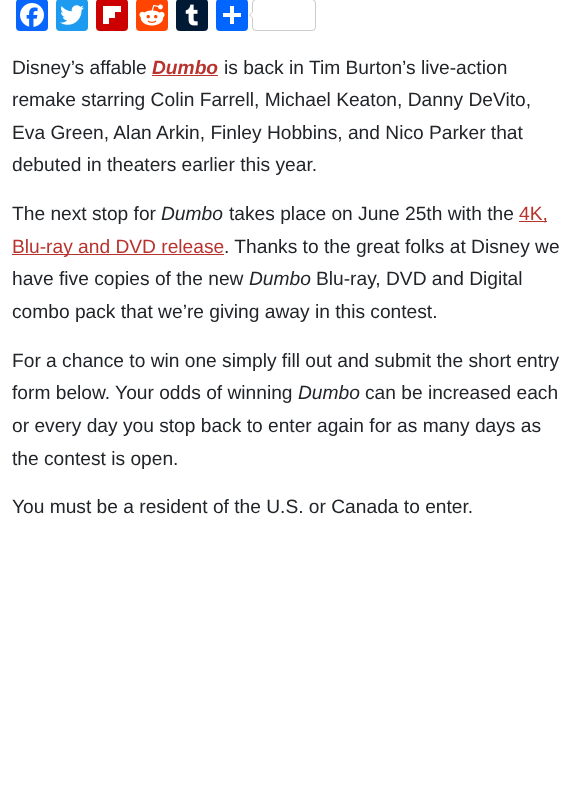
async function draw(canvas) {
	canvas.width = 572;
	canvas.height = 804;
	const c = canvas.getContext('2d');
	c.miterLimit = 4;
	c.fontKerning = 'normal';
	async function loadImage(src) {
		const img = new Image();
		img.src = src;
		await img.decode();
		return img;
	}

	c.fillStyle = '#fff';
	c.fillRect(0, 0, 572, 804);
	c.fillStyle = '#0866ff';
	c.beginPath();
	c.roundRect(16, -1, 32, 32, 4);
	c.fill();
	c.drawImage(await loadImage('img1.png'), 20, 3, 24, 24);
	c.fillStyle = '#1d9bf0';
	c.beginPath();
	c.roundRect(56, -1, 32, 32, 4);
	c.fill();
	c.drawImage(await loadImage('img2.png'), 60, 5, 24, 20);
	c.fillStyle = '#c00';
	c.beginPath();
	c.roundRect(96, -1, 32, 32, 4);
	c.fill();
	for (const [x, y, w, h, color] of [
		[109, 12, 6, 6, '#fff'],
		[103, 6, 18, 6, '#fff'],
		[103, 6, 6, 18, '#fff'],
	]) {
		c.fillStyle = color;
		c.fillRect(x, y, w, h);
	}
	c.fillStyle = '#ff4500';
	c.beginPath();
	c.roundRect(136, -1, 32, 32, 4);
	c.fill();
	c.drawImage(await loadImage('img3.png'), 139, 4, 26, 22);
	c.fillStyle = '#001935';
	c.beginPath();
	c.roundRect(176, -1, 32, 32, 4);
	c.fill();
	c.drawImage(await loadImage('img4.png'), 185, 4, 13, 22);
	c.fillStyle = '#0166ff';
	c.beginPath();
	c.roundRect(216, -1, 32, 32, 4);
	c.fill();
	c.fillStyle = '#fff';
	c.fillRect(230, 6, 4, 18);
	c.fillRect(223, 13, 18, 4);
	c.beginPath();
	c.roundRect(252.5, -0.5, 63, 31, 3.5);
	c.strokeStyle = '#ccc';
	c.stroke();
	c.fillStyle = '#ccc';
	c.beginPath();
	c.moveTo(253, 11);
	c.lineTo(253, 19);
	c.lineTo(249, 15);
	c.closePath();
	c.fill();
	c.fillStyle = '#fff';
	c.beginPath();
	c.moveTo(254, 11);
	c.lineTo(254, 19);
	c.lineTo(250, 15);
	c.closePath();
	c.fill();
	c.font = '19.2px Liberation Sans';
	c.fillStyle = '#212529';
	c.fillText('Disney’s affable', 12, 74);
	c.font = 'italic bold 19.2px Liberation Sans';
	c.fillStyle = '#b9332e';
	c.fillText('Dumbo', 152, 74);
	c.fillRect(152, 75, 66, 1);
	c.font = '19.2px Liberation Sans';
	c.fillStyle = '#212529';
	for (const [text, x, y] of [
		['is back in Tim Burton’s live-action', 224, 74],
		['remake starring Colin Farrell, Michael Keaton, Danny DeVito,', 12, 106],
		['Eva Green, Alan Arkin, Finley Hobbins, and Nico Parker that', 12, 139],
		['debuted in theaters earlier this year.', 12, 171],
		['The next stop for', 12, 220],
	]) {
		c.fillText(text, x, y);
	}
	c.font = 'italic 19.2px Liberation Sans';
	c.fillText('Dumbo', 161, 220);
	c.font = '19.2px Liberation Sans';
	c.fillText('takes place on June 25th with the', 229, 220);
	c.fillStyle = '#b9332e';
	c.fillRect(519, 221, 28, 1);
	c.fillText('4K,', 519, 220);
	c.fillRect(12, 254, 212, 1);
	c.fillText('Blu-ray and DVD release', 12, 253);
	c.fillStyle = '#212529';
	c.fillText('. Thanks to the great folks at Disney we', 224, 253);
	c.fillText('have five copies of the new', 12, 285);
	c.font = 'italic 19.2px Liberation Sans';
	c.fillText('Dumbo', 249, 285);
	c.font = '19.2px Liberation Sans';
	for (const [text, x, y] of [
		['Blu-ray, DVD and Digital', 316, 285],
		['combo pack that we’re giving away in this contest.', 12, 318],
		['For a chance to win one simply fill out and submit the short entry', 12, 367],
		['form below. Your odds of winning', 12, 399],
	]) {
		c.fillText(text, x, y);
	}
	c.font = 'italic 19.2px Liberation Sans';
	c.fillText('Dumbo', 298, 399);
	c.font = '19.2px Liberation Sans';
	for (const [text, x, y] of [
		['can be increased each', 365, 399],
		['or every day you stop back to enter again for as many days as', 12, 432],
		['the contest is open.', 12, 465],
		['You must be a resident of the U.S. or Canada to enter.', 12, 513],
	]) {
		c.fillText(text, x, y);
	}
}

draw(document.querySelector('canvas'));
